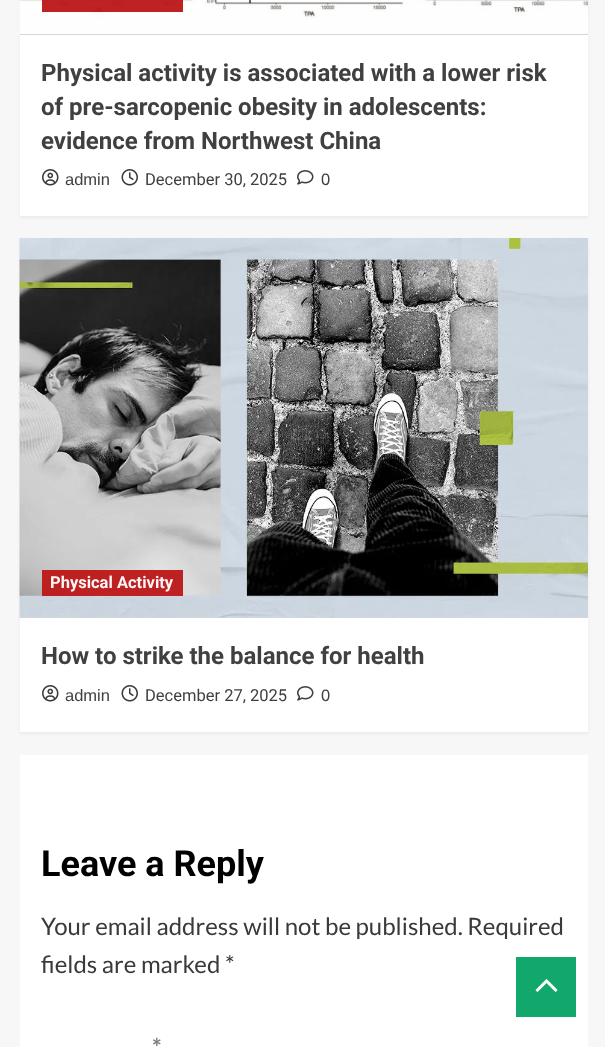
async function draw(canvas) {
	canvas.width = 605;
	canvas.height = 1047;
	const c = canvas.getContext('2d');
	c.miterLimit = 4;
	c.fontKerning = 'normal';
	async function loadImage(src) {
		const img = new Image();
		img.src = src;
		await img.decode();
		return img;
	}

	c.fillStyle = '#f7f7f7';
	c.fillRect(0, 0, 605, 1047);
	c.fillStyle = '#0000000d';
	c.filter = 'blur(1.5px)';
	c.beginPath();
	c.rect(20, -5, 568, 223);
	c.fill();
	c.filter = 'none';
	c.fillStyle = '#fff';
	c.fillRect(20, 35, 568, 181);
	c.fillStyle = '#d8d8d8';
	c.fillRect(20, 34, 568, 1);
	c.drawImage(await loadImage('img1.png'), 19, 0, 569, 34);
	c.fillStyle = '#bb1919f5';
	c.fillRect(42, 0, 141, 12);
	c.font = 'bold 24px Roboto';
	c.fillStyle = '#404040';
	for (const [text, x, y] of [
		['Physical activity is associated with a lower risk', 41, 81],
		['of pre-sarcopenic obesity in adolescents:', 41, 115],
		['evidence from Northwest China', 41, 149],
	]) {
		c.fillText(text, x, y);
	}
	c.drawImage(await loadImage('img2.png'), 42, 169, 17, 17);
	c.font = '16.5px Liberation Sans';
	c.fillText('admin', 65, 185);
	c.drawImage(await loadImage('img3.png'), 121, 169, 17, 17);
	c.font = '16.5px Roboto';
	c.fillText('December 30, 2025', 145, 185);
	c.drawImage(await loadImage('img4.png'), 297, 170, 17, 15);
	c.font = '16.5px Liberation Sans';
	c.fillText('0', 321, 185);
	c.fillStyle = '#0000000d';
	c.filter = 'blur(1.5px)';
	c.beginPath();
	c.rect(20, 240, 568, 494);
	c.fill();
	c.filter = 'none';
	c.fillStyle = '#fff';
	c.fillRect(20, 618, 568, 114);
	c.fillStyle = '#d8d8d8';
	c.fillRect(20, 617, 568, 1);
	c.drawImage(await loadImage('img5.png'), 19, 238, 569, 380);
	c.fillStyle = '#bb1919f5';
	c.fillRect(42, 570, 141, 26);
	c.font = 'bold 16.5px Roboto';
	c.fillStyle = '#fcf6f6';
	c.fillText('Physical Activity', 50, 588);
	c.font = 'bold 24px Roboto';
	c.fillStyle = '#404040';
	c.fillText('How to strike the balance for health', 41, 664);
	c.drawImage(await loadImage('img2.png'), 42, 685, 17, 17);
	c.font = '16.5px Liberation Sans';
	c.fillText('admin', 65, 701);
	c.drawImage(await loadImage('img3.png'), 121, 685, 17, 17);
	c.font = '16.5px Roboto';
	c.fillText('December 27, 2025', 145, 701);
	c.drawImage(await loadImage('img4.png'), 297, 686, 17, 15);
	c.font = '16.5px Liberation Sans';
	c.fillText('0', 321, 701);
	c.fillStyle = '#fff';
	c.fillRect(20, 755, 568, 292);
	c.font = 'bold 36px Roboto';
	c.fillStyle = '#000';
	c.fillText('Leave a Reply', 41, 876);
	c.font = '24px Lato';
	c.fillStyle = '#3a3a3a';
	c.fillText('Your email address will not be published. Required', 41, 935);
	c.fillText('fields are marked *', 41, 973);
	c.font = 'bold 24px Lato';
	c.fillStyle = '#808086';
	c.fillText('*', 152, 1056);
	c.fillStyle = '#12a86b';
	c.fillRect(516, 957, 60, 60);
	c.drawImage(await loadImage('img6.png'), 535, 979, 23, 13);
}

draw(document.querySelector('canvas'));
